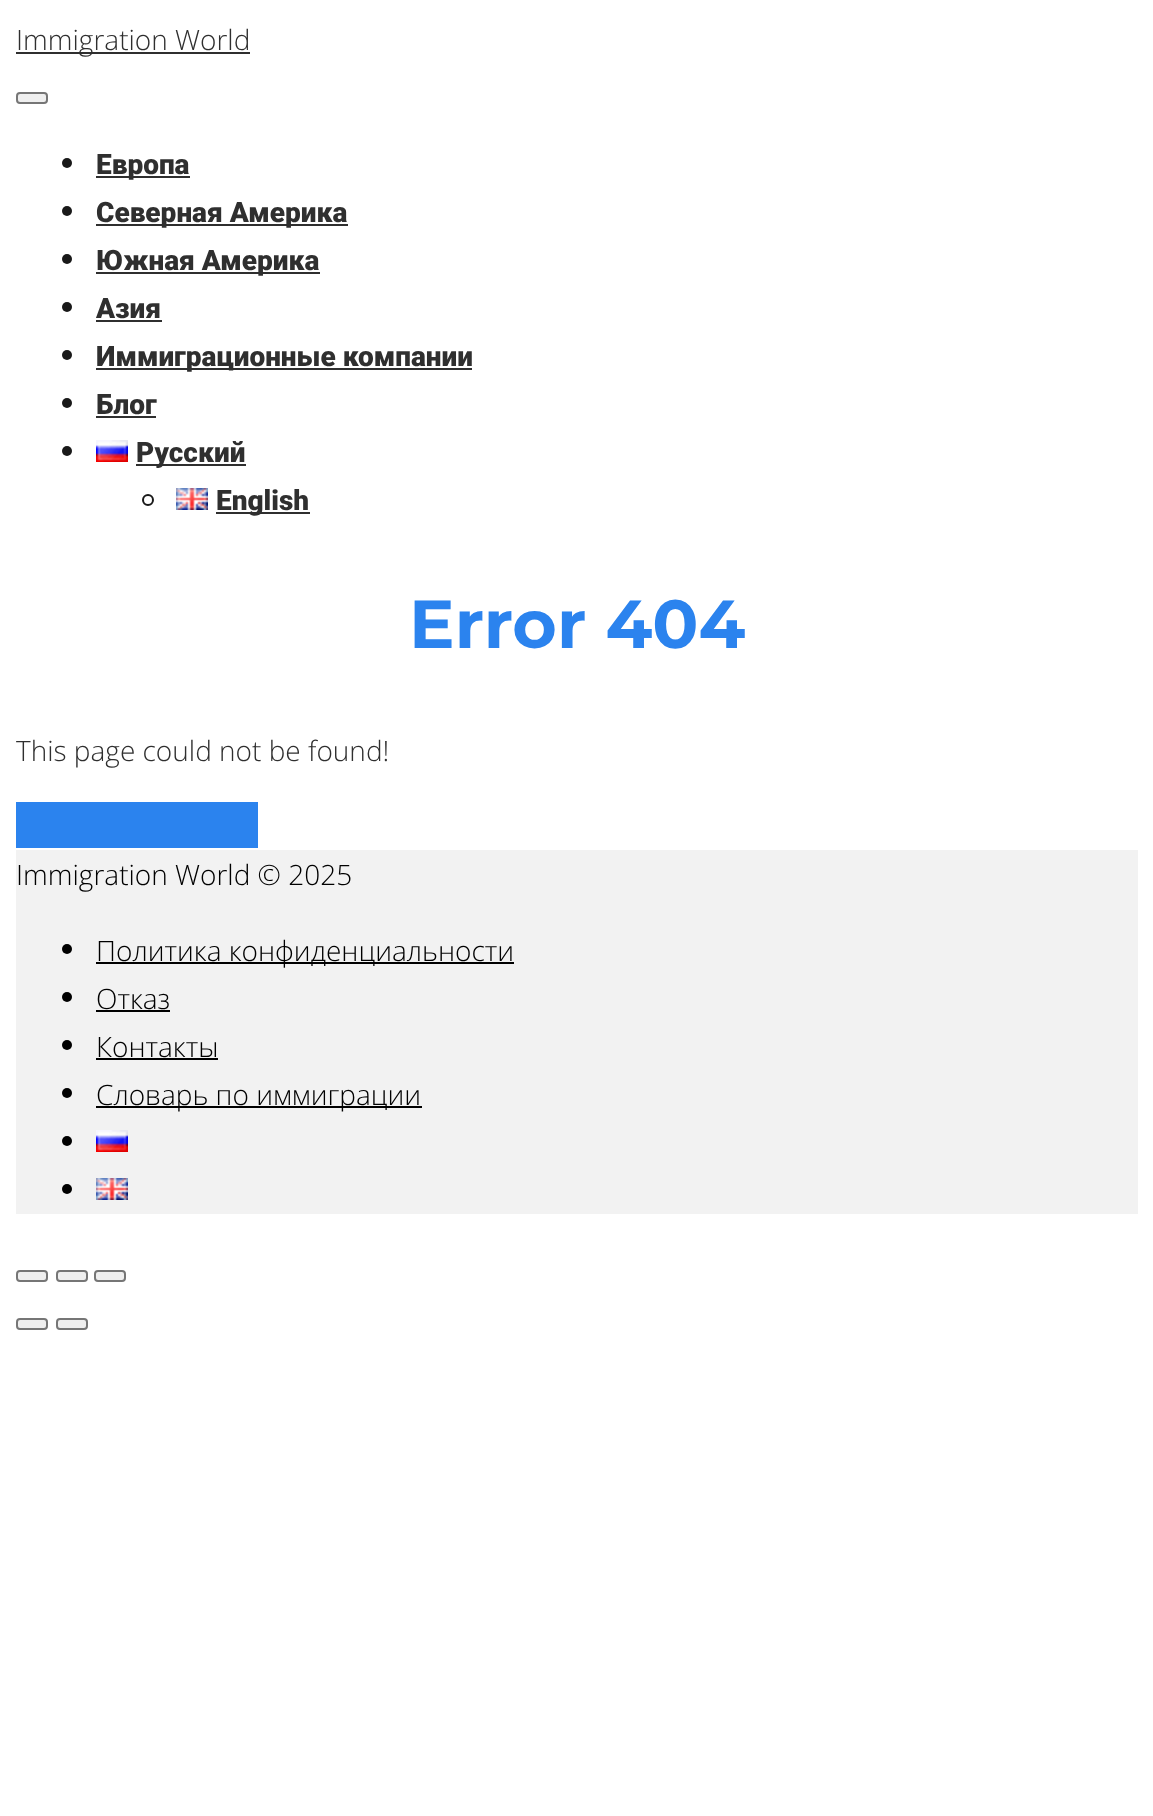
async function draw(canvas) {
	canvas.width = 1153;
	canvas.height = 1816;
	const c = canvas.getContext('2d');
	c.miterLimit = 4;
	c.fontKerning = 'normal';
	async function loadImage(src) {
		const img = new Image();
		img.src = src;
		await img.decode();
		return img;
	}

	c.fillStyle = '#fff';
	c.fillRect(0, 0, 1153, 1816);
	c.fillStyle = '#2f2f2f';
	c.fillRect(16, 52, 234, 2);
	c.font = '300 28px Open Sans';
	c.fillText('Immigration World', 16, 50);
	c.fillStyle = '#efefef';
	c.beginPath();
	c.roundRect(17, 93, 30, 10, 3);
	c.fill();
	c.strokeStyle = '#767676';
	c.lineWidth = 2;
	c.stroke();
	c.fillStyle = '#191919';
	c.beginPath();
	c.arc(67, 163, 5, 0, 2 * Math.PI);
	c.fill();
	c.fillStyle = '#2f2f2f';
	c.fillRect(96, 176, 94, 2);
	c.font = '900 28px Roboto';
	c.fillText('Европа', 96, 174);
	c.fillStyle = '#191919';
	c.beginPath();
	c.arc(67, 211, 5, 0, 2 * Math.PI);
	c.fill();
	c.fillStyle = '#2f2f2f';
	c.fillRect(96, 224, 252, 2);
	c.fillText('Северная Америка', 96, 222);
	c.fillStyle = '#191919';
	c.beginPath();
	c.arc(67, 259, 5, 0, 2 * Math.PI);
	c.fill();
	c.fillStyle = '#2f2f2f';
	c.fillRect(96, 272, 224, 2);
	c.fillText('Южная Америка', 96, 270);
	c.fillStyle = '#191919';
	c.beginPath();
	c.arc(67, 307, 5, 0, 2 * Math.PI);
	c.fill();
	c.fillStyle = '#2f2f2f';
	c.fillText('Азия', 96, 318);
	c.fillRect(96, 320, 66, 2);
	c.fillStyle = '#191919';
	c.beginPath();
	c.arc(67, 355, 5, 0, 2 * Math.PI);
	c.fill();
	c.fillStyle = '#2f2f2f';
	c.fillRect(96, 368, 376, 2);
	c.fillText('Иммиграционные компании', 96, 366);
	c.fillStyle = '#191919';
	c.beginPath();
	c.arc(67, 403, 5, 0, 2 * Math.PI);
	c.fill();
	c.fillStyle = '#2f2f2f';
	c.fillText('Блог', 96, 414);
	c.fillRect(96, 416, 60, 2);
	c.fillStyle = '#191919';
	c.beginPath();
	c.arc(67, 451, 5, 0, 2 * Math.PI);
	c.fill();
	c.drawImage(await loadImage('img1.png'), 96, 440, 32, 22);
	c.fillStyle = '#2f2f2f';
	c.fillRect(136, 464, 110, 2);
	c.fillText('Русский', 136, 462);
	c.beginPath();
	c.arc(148, 500, 5, 0, 2 * Math.PI);
	c.strokeStyle = '#191919';
	c.stroke();
	c.drawImage(await loadImage('img2.png'), 176, 488, 32, 22);
	c.fillRect(216, 512, 94, 2);
	c.fillText('English', 216, 510);
	c.font = 'bold 68px Montserrat';
	c.fillStyle = '#2b83ee';
	c.fillText('Error 404', 409, 648);
	c.font = '300 28px Open Sans';
	c.fillStyle = '#2f2f2f';
	c.fillText('This page could not be found!', 16, 761);
	c.fillStyle = '#2b83ee';
	c.fillRect(16, 802, 242, 46);
	c.fillStyle = '#f2f2f2';
	c.fillRect(16, 850, 1122, 364);
	c.fillStyle = '#000';
	c.fillText('Immigration World © 2025', 16, 885);
	c.beginPath();
	c.arc(67, 949, 5, 0, 2 * Math.PI);
	c.fill();
	c.fillRect(96, 962, 418, 2);
	c.fillText('Политика конфиденциальности', 96, 961);
	c.beginPath();
	c.arc(67, 997, 5, 0, 2 * Math.PI);
	c.fill();
	c.fillText('Отказ', 96, 1009);
	c.fillRect(96, 1010, 74, 2);
	c.beginPath();
	c.arc(67, 1045, 5, 0, 2 * Math.PI);
	c.fill();
	c.fillText('Контакты', 96, 1057);
	c.fillRect(96, 1058, 122, 2);
	c.beginPath();
	c.arc(67, 1093, 5, 0, 2 * Math.PI);
	c.fill();
	c.fillRect(96, 1106, 326, 2);
	c.fillText('Словарь по иммиграции', 96, 1105);
	c.beginPath();
	c.arc(67, 1141, 5, 0, 2 * Math.PI);
	c.fill();
	c.drawImage(await loadImage('img1.png'), 96, 1130, 32, 22);
	c.beginPath();
	c.arc(67, 1189, 5, 0, 2 * Math.PI);
	c.fill();
	c.drawImage(await loadImage('img2.png'), 96, 1178, 32, 22);
	c.fillStyle = '#efefef';
	c.beginPath();
	c.roundRect(17, 1271, 30, 10, 3);
	c.fill();
	c.strokeStyle = '#767676';
	c.stroke();
	c.beginPath();
	c.roundRect(57, 1271, 30, 10, 3);
	c.fill();
	c.stroke();
	c.beginPath();
	c.roundRect(95, 1271, 30, 10, 3);
	c.fill();
	c.stroke();
	c.beginPath();
	c.roundRect(17, 1319, 30, 10, 3);
	c.fill();
	c.stroke();
	c.beginPath();
	c.roundRect(57, 1319, 30, 10, 3);
	c.fill();
	c.stroke();
}

draw(document.querySelector('canvas'));
